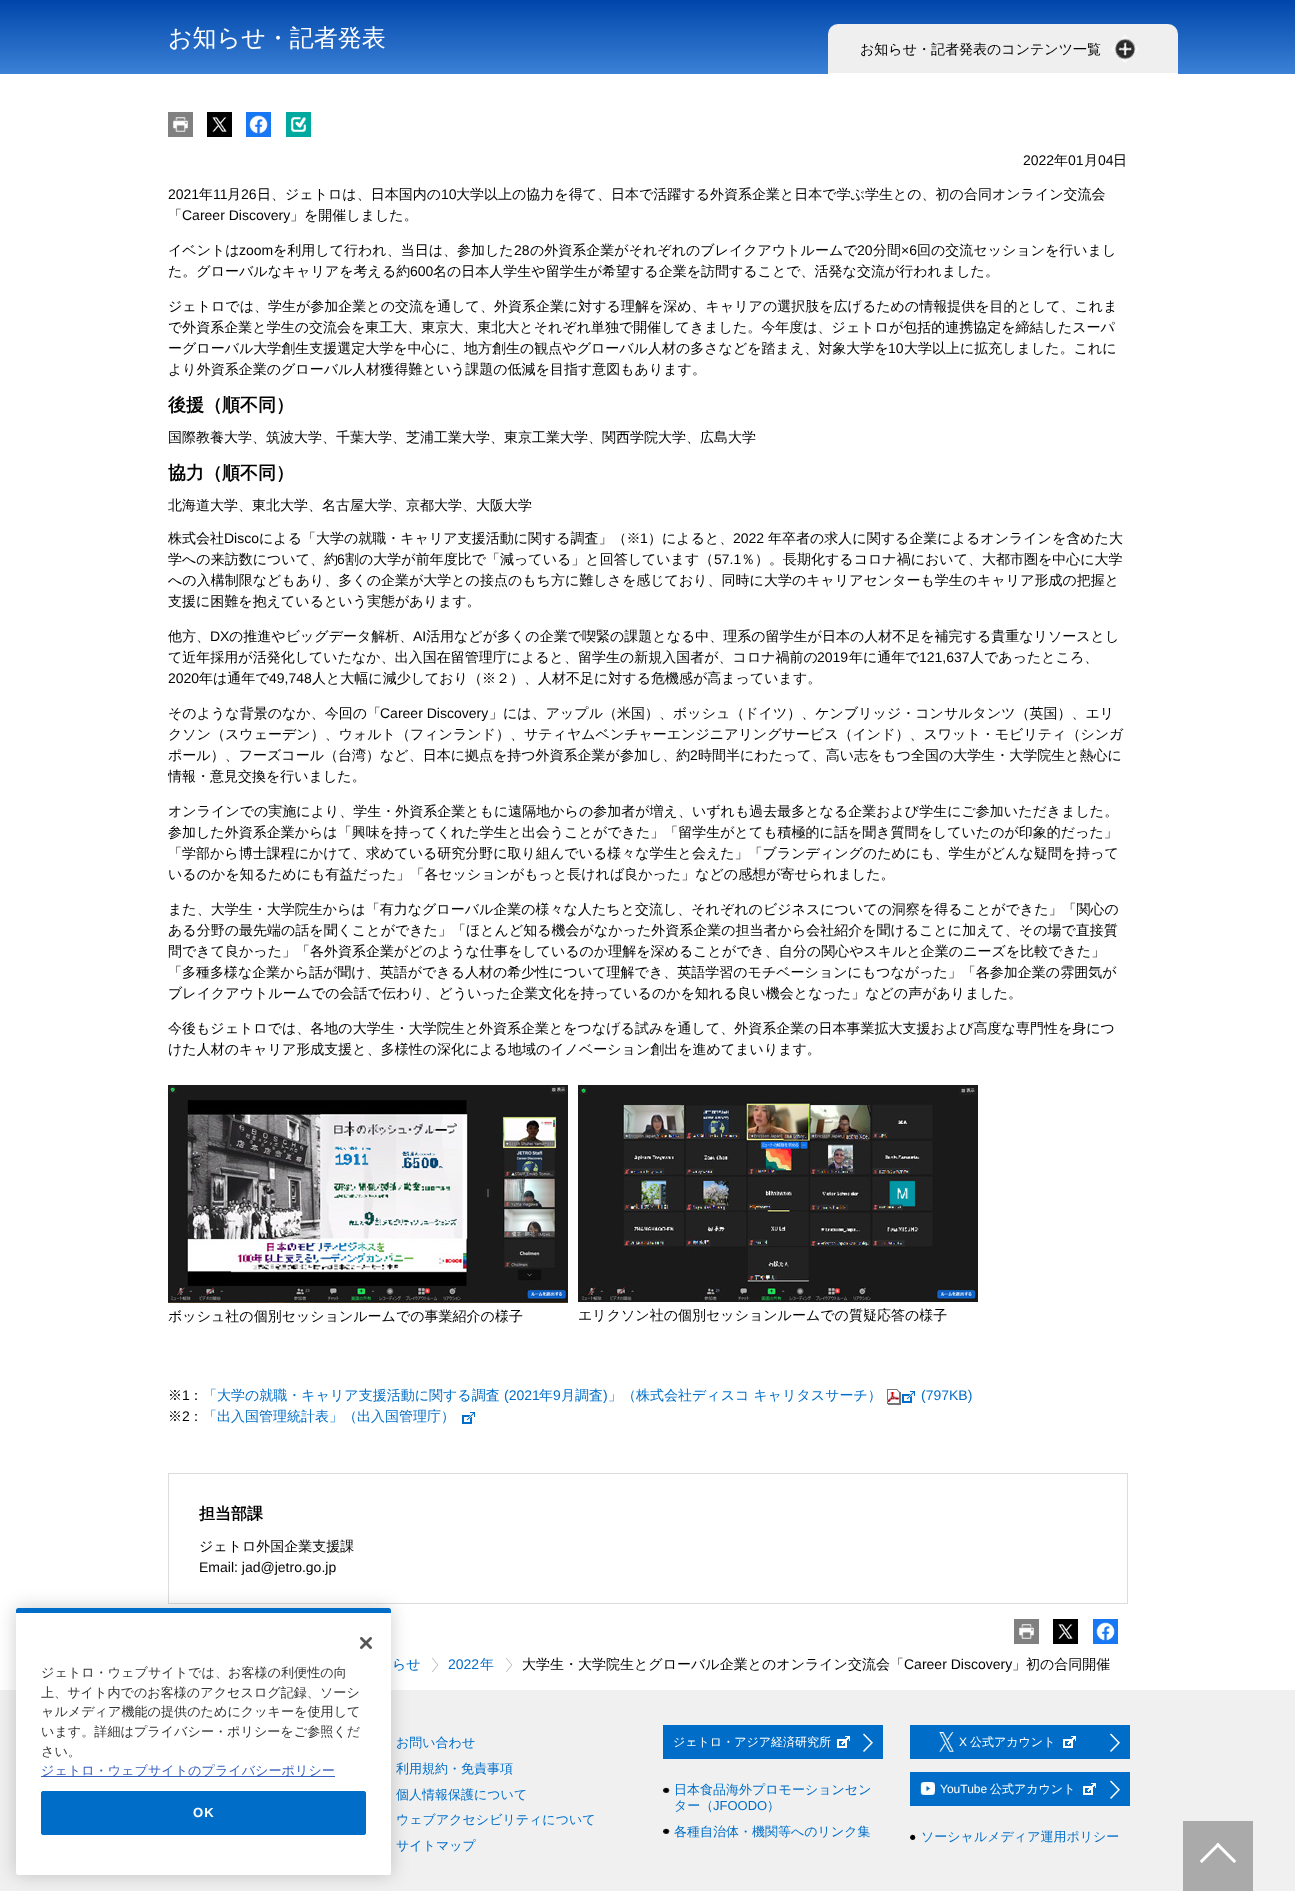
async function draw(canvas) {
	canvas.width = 1295;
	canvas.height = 1891;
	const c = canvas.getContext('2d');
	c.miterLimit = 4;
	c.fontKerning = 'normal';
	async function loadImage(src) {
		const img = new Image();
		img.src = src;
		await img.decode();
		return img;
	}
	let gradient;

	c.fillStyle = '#fff';
	c.fillRect(0, 0, 1295, 1891);
	gradient = c.createLinearGradient(648, 0, 648, 74);
	gradient.addColorStop(0, '#0046aa');
	gradient.addColorStop(1, '#3b81d6');
	c.fillStyle = gradient;
	c.fillRect(0, 0, 1295, 74);
	c.font = '500 24px WenQuanYi Zen Hei';
	c.fillStyle = '#fff';
	c.fillText('お知らせ・記者発表', 168, 46);
	c.fillStyle = '#f0eff0';
	c.beginPath();
	c.roundRect(828, 24, 350, 50, [10, 10, 0, 0]);
	c.fill();
	c.fillStyle = '#fff';
	c.fillRect(828, 73, 350, 1);
	c.font = '500 14px WenQuanYi Zen Hei';
	c.fillStyle = '#000';
	c.fillText('お知らせ・記者発表のコンテンツ一覧', 860, 54);
	c.drawImage(await loadImage('img1.png'), 1111, 35, 28, 28);
	c.drawImage(await loadImage('img2.png'), 168, 112, 25, 25);
	c.drawImage(await loadImage('img3.png'), 207, 112, 25, 25);
	c.drawImage(await loadImage('img4.png'), 246, 112, 25, 25);
	c.drawImage(await loadImage('img5.png'), 286, 112, 25, 25);
	c.font = '14px Liberation Sans';
	c.fillText('2022', 1023, 165);
	c.font = '500 14px WenQuanYi Zen Hei';
	c.fillText('年', 1054, 165);
	c.font = '14px Liberation Sans';
	c.fillText('01', 1068, 165);
	c.font = '500 14px WenQuanYi Zen Hei';
	c.fillText('月', 1084, 165);
	c.font = '14px Liberation Sans';
	c.fillText('04', 1098, 165);
	c.font = '500 14px WenQuanYi Zen Hei';
	c.fillText('日', 1113, 165);
	c.font = '14px Liberation Sans';
	c.fillText('2021', 168, 199);
	c.font = '500 14px WenQuanYi Zen Hei';
	c.fillText('年', 199, 199);
	c.font = '14px Liberation Sans';
	c.fillText('11', 213, 199);
	c.font = '500 14px WenQuanYi Zen Hei';
	c.fillText('月', 227, 199);
	c.font = '14px Liberation Sans';
	c.fillText('26', 241, 199);
	c.font = '500 14px WenQuanYi Zen Hei';
	c.fillText('日、ジェトロは、日本国内の', 257, 199);
	c.font = '14px Liberation Sans';
	c.fillText('10', 441, 199);
	c.font = '500 14px WenQuanYi Zen Hei';
	c.fillText('大学以上の協力を得て、日本で活躍する外資系企業と日本で学ぶ学生との、初の合同オンライン交流会', 456, 199);
	c.fillText('「', 168, 220);
	c.font = '14px Liberation Sans';
	c.fillText('Career Discovery', 182, 220);
	c.font = '500 14px WenQuanYi Zen Hei';
	c.fillText('」を開催しました。', 290, 220);
	c.fillText('イベントは', 168, 255);
	c.font = '14px Liberation Sans';
	c.fillText('zoom', 239, 255);
	c.font = '500 14px WenQuanYi Zen Hei';
	c.fillText('を利用して行われ、当日は、参加した', 273, 255);
	c.font = '14px Liberation Sans';
	c.fillText('28', 514, 255);
	c.font = '500 14px WenQuanYi Zen Hei';
	c.fillText('の外資系企業がそれぞれのブレイクアウトルームで', 530, 255);
	c.font = '14px Liberation Sans';
	c.fillText('20', 857, 255);
	c.font = '500 14px WenQuanYi Zen Hei';
	c.fillText('分間', 873, 255);
	c.font = '14px Liberation Sans';
	c.fillText('×6', 901, 255);
	c.font = '500 14px WenQuanYi Zen Hei';
	c.fillText('回の交流セッションを行いまし', 917, 255);
	c.fillText('た。グローバルなキャリアを考える約', 168, 276);
	c.font = '14px Liberation Sans';
	c.fillText('600', 410, 276);
	c.font = '500 14px WenQuanYi Zen Hei';
	for (const [text, x, y] of [
		['名の日本人学生や留学生が希望する企業を訪問することで、活発な交流が行われました。', 433, 276],
		['ジェトロでは、学生が参加企業との交流を通して、外資系企業に対する理解を深め、キャリアの選択肢を広げるための情報提供を目的として、これま', 168, 311],
		['で外資系企業と学生の交流会を東工大、東京大、東北大とそれぞれ単独で開催してきました。今年度は、ジェトロが包括的連携協定を締結したスーパ', 168, 332],
		['ーグローバル大学創生支援選定大学を中心に、地方創生の観点やグローバル人材の多さなどを踏まえ、対象大学を', 168, 353],
	]) {
		c.fillText(text, x, y);
	}
	c.font = '14px Liberation Sans';
	c.fillText('10', 888, 353);
	c.font = '500 14px WenQuanYi Zen Hei';
	c.fillText('大学以上に拡充しました。これに', 904, 353);
	c.fillText('より外資系企業のグローバル人材獲得難という課題の低減を目指す意図もあります。', 168, 374);
	c.font = 'bold 18px WenQuanYi Zen Hei';
	c.fillText('後援（順不同）', 168, 411);
	c.font = '500 14px WenQuanYi Zen Hei';
	c.fillText('国際教養大学、筑波大学、千葉大学、芝浦工業大学、東京工業大学、関西学院大学、広島大学', 168, 442);
	c.font = 'bold 18px WenQuanYi Zen Hei';
	c.fillText('協力（順不同）', 168, 479);
	c.font = '500 14px WenQuanYi Zen Hei';
	c.fillText('北海道大学、東北大学、名古屋大学、京都大学、大阪大学', 168, 510);
	c.fillText('株式会社', 168, 543);
	c.font = '14px Liberation Sans';
	c.fillText('Disco', 224, 543);
	c.font = '500 14px WenQuanYi Zen Hei';
	c.fillText('による「大学の就職・キャリア支援活動に関する調査」（※', 259, 543);
	c.font = '14px Liberation Sans';
	c.fillText('1', 640, 543);
	c.font = '500 14px WenQuanYi Zen Hei';
	c.fillText('）によると、', 648, 543);
	c.font = '14px Liberation Sans';
	c.fillText('2022', 733, 543);
	c.font = '500 14px WenQuanYi Zen Hei';
	c.fillText('年卒者の求人に関する企業によるオンラインを含めた大', 768, 543);
	c.fillText('学への来訪数について、約', 168, 564);
	c.font = '14px Liberation Sans';
	c.fillText('6', 337, 564);
	c.font = '500 14px WenQuanYi Zen Hei';
	c.fillText('割の大学が前年度比で「減っている」と回答しています（', 345, 564);
	c.font = '14px Liberation Sans';
	c.fillText('57.1', 714, 564);
	c.font = '500 14px WenQuanYi Zen Hei';
	for (const [text, x, y] of [
		['％）。長期化するコロナ禍において、大都市圏を中心に大学', 741, 564],
		['への入構制限などもあり、多くの企業が大学との接点のもち方に難しさを感じており、同時に大学のキャリアセンターも学生のキャリア形成の把握と', 168, 585],
		['支援に困難を抱えているという実態があります。', 168, 606],
		['他方、', 168, 641],
	]) {
		c.fillText(text, x, y);
	}
	c.font = '14px Liberation Sans';
	c.fillText('DX', 210, 641);
	c.font = '500 14px WenQuanYi Zen Hei';
	c.fillText('の推進やビッグデータ解析、', 229, 641);
	c.font = '14px Liberation Sans';
	c.fillText('AI', 413, 641);
	c.font = '500 14px WenQuanYi Zen Hei';
	c.fillText('活用などが多くの企業で喫緊の課題となる中、理系の留学生が日本の人材不足を補完する貴重なリソースとし', 426, 641);
	c.fillText('て近年採用が活発化していたなか、出入国在留管理庁によると、留学生の新規入国者が、コロナ禍前の', 168, 662);
	c.font = '14px Liberation Sans';
	c.fillText('2019', 817, 662);
	c.font = '500 14px WenQuanYi Zen Hei';
	c.fillText('年に通年で', 849, 662);
	c.font = '14px Liberation Sans';
	c.fillText('121,637', 919, 662);
	c.font = '500 14px WenQuanYi Zen Hei';
	c.fillText('人であったところ、', 970, 662);
	c.font = '14px Liberation Sans';
	c.fillText('2020', 168, 683);
	c.font = '500 14px WenQuanYi Zen Hei';
	c.fillText('年は通年で', 199, 683);
	c.font = '14px Liberation Sans';
	c.fillText('49,748', 269, 683);
	c.font = '500 14px WenQuanYi Zen Hei';
	c.fillText('人と大幅に減少しており（※２）、人材不足に対する危機感が高まっています。', 312, 683);
	c.fillText('そのような背景のなか、今回の「', 168, 718);
	c.font = '14px Liberation Sans';
	c.fillText('Career Discovery', 380, 718);
	c.font = '500 14px WenQuanYi Zen Hei';
	for (const [text, x, y] of [
		['」には、アップル（米国）、ボッシュ（ドイツ）、ケンブリッジ・コンサルタンツ（英国）、エリ', 489, 718],
		['クソン（スウェーデン）、ウォルト（フィンランド）、サティヤムベンチャーエンジニアリングサービス（インド）、スワット・モビリティ（シンガ', 168, 739],
		['ポール）、フーズコール（台湾）など、日本に拠点を持つ外資系企業が参加し、約', 168, 760],
	]) {
		c.fillText(text, x, y);
	}
	c.font = '14px Liberation Sans';
	c.fillText('2', 690, 760);
	c.font = '500 14px WenQuanYi Zen Hei';
	c.fillText('時間半にわたって、高い志をもつ全国の大学生・大学院生と熱心に', 698, 760);
	c.save();
	c.beginPath();
	c.rect(168, 181, 960, 1277);
	c.clip();
	c.fillText('情報・意見交換を行いました。', 168, 781);
	c.restore();
	for (const [text, x, y] of [
		['オンラインでの実施により、学生・外資系企業ともに遠隔地からの参加者が増え、いずれも過去最多となる企業および学生にご参加いただきました。', 168, 816],
		['参加した外資系企業からは「興味を持ってくれた学生と出会うことができた」「留学生がとても積極的に話を聞き質問をしていたのが印象的だった」', 168, 837],
		['「学部から博士課程にかけて、求めている研究分野に取り組んでいる様々な学生と会えた」「ブランディングのためにも、学生がどんな疑問を持って', 168, 858],
		['いるのかを知るためにも有益だった」「各セッションがもっと長ければ良かった」などの感想が寄せられました。', 168, 879],
		['また、大学生・大学院生からは「有力なグローバル企業の様々な人たちと交流し、それぞれのビジネスについての洞察を得ることができた」「関心の', 168, 914],
		['ある分野の最先端の話を聞くことができた」「ほとんど知る機会がなかった外資系企業の担当者から会社紹介を聞けることに加えて、その場で直接質', 168, 935],
		['問できて良かった」「各外資系企業がどのような仕事をしているのか理解を深めることができ、自分の関心やスキルと企業のニーズを比較できた」', 168, 956],
		['「多種多様な企業から話が聞け、英語ができる人材の希少性について理解でき、英語学習のモチベーションにもつながった」「各参加企業の雰囲気が', 168, 977],
		['ブレイクアウトルームでの会話で伝わり、どういった企業文化を持っているのかを知れる良い機会となった」などの声がありました。', 168, 998],
		['今後もジェトロでは、各地の大学生・大学院生と外資系企業とをつなげる試みを通して、外資系企業の日本事業拡大支援および高度な専門性を身につ', 168, 1033],
		['けた人材のキャリア形成支援と、多様性の深化による地域のイノベーション創出を進めてまいります。', 168, 1054],
	]) {
		c.fillText(text, x, y);
	}
	c.drawImage(await loadImage('img6.png'), 168, 1085, 400, 218);
	c.fillText('ボッシュ社の個別セッションルームでの事業紹介の様子', 168, 1321);
	c.drawImage(await loadImage('img7.png'), 578, 1085, 400, 217);
	c.fillText('エリクソン社の個別セッションルームでの質疑応答の様子', 578, 1320);
	c.fillText('※', 168, 1400);
	c.font = '14px Liberation Sans';
	c.fillText('1', 182, 1400);
	c.font = '500 14px WenQuanYi Zen Hei';
	c.fillText('：', 189, 1400);
	c.fillStyle = '#006ec8';
	c.fillText('「大学の就職・キャリア支援活動に関する調査', 203, 1400);
	c.font = '14px Liberation Sans';
	c.fillText('(2021', 504, 1400);
	c.font = '500 14px WenQuanYi Zen Hei';
	c.fillText('年', 539, 1400);
	c.font = '14px Liberation Sans';
	c.fillText('9', 553, 1400);
	c.font = '500 14px WenQuanYi Zen Hei';
	c.fillText('月調査', 561, 1400);
	c.font = '14px Liberation Sans';
	c.fillText(')', 603, 1400);
	c.font = '500 14px WenQuanYi Zen Hei';
	c.fillText('」（株式会社ディスコ キャリタスサーチ）', 608, 1400);
	c.drawImage(await loadImage('img8.png'), 887, 1389, 28, 16);
	c.font = '14px Liberation Sans';
	c.fillText('(797KB)', 921, 1400);
	c.font = '500 14px WenQuanYi Zen Hei';
	c.fillStyle = '#000';
	c.fillText('※', 168, 1421);
	c.font = '14px Liberation Sans';
	c.fillText('2', 182, 1421);
	c.font = '500 14px WenQuanYi Zen Hei';
	c.fillText('：', 189, 1421);
	c.fillStyle = '#006ec8';
	c.fillText('「出入国管理統計表」（出入国管理庁）', 203, 1421);
	c.drawImage(await loadImage('img9.png'), 462, 1412, 13, 12);
	c.strokeStyle = '#dcdcdc';
	c.strokeRect(168.5, 1473.5, 959, 130);
	c.font = 'bold 16px WenQuanYi Zen Hei';
	c.fillStyle = '#000';
	c.fillText('担当部課', 199, 1519);
	c.font = '500 14px WenQuanYi Zen Hei';
	c.fillText('ジェトロ外国企業支援課', 199, 1551);
	c.font = '14px Liberation Sans';
	c.fillText('Email: jad@jetro.go.jp', 199, 1572);
	c.drawImage(await loadImage('img2.png'), 1014, 1619, 25, 25);
	c.drawImage(await loadImage('img3.png'), 1053, 1619, 25, 25);
	c.drawImage(await loadImage('img10.png'), 1093, 1619, 25, 25);
	c.drawImage(await loadImage('img11.png'), 432, 1658, 6, 14);
	c.font = '500 14px WenQuanYi Zen Hei';
	c.fillStyle = '#006ec8';
	c.fillText('らせ', 392, 1669);
	c.drawImage(await loadImage('img11.png'), 506, 1658, 6, 14);
	c.font = '14px Liberation Sans';
	c.fillText('2022', 448, 1669);
	c.font = '500 14px WenQuanYi Zen Hei';
	c.fillText('年', 480, 1669);
	c.fillStyle = '#000';
	c.fillText('大学生・大学院生とグローバル企業とのオンライン交流会「', 522, 1669);
	c.font = '14px Liberation Sans';
	c.fillText('Career Discovery', 904, 1669);
	c.font = '500 14px WenQuanYi Zen Hei';
	c.fillText('」初の合同開催', 1012, 1669);
	c.fillStyle = '#f0f0f0';
	c.fillRect(0, 1690, 1295, 201);
	c.font = '500 13px WenQuanYi Zen Hei';
	c.fillStyle = '#006ec8';
	for (const [text, x, y] of [
		['お問い合わせ', 396, 1747],
		['利用規約・免責事項', 396, 1773],
		['個人情報保護について', 396, 1799],
		['ウェブアクセシビリティについて', 396, 1824],
		['サイトマップ', 396, 1850],
	]) {
		c.fillText(text, x, y);
	}
	c.fillRect(663, 1725, 220, 34);
	c.drawImage(await loadImage('img12.png'), 863, 1733, 10, 19);
	c.font = '500 12px WenQuanYi Zen Hei';
	c.fillStyle = '#fff';
	c.fillText('ジェトロ・アジア経済研究所', 673, 1746);
	c.drawImage(await loadImage('img13.png'), 837, 1736, 13, 12);
	c.drawImage(await loadImage('img14.png'), 663, 1787, 7, 6);
	c.font = '500 13px WenQuanYi Zen Hei';
	c.fillStyle = '#006ec8';
	c.fillText('日本食品海外プロモーションセン', 674, 1794);
	c.fillText('ター（', 674, 1810);
	c.font = '13px Liberation Sans';
	c.fillText('JFOODO', 713, 1810);
	c.font = '500 13px WenQuanYi Zen Hei';
	c.fillText('）', 767, 1810);
	c.drawImage(await loadImage('img14.png'), 663, 1828, 7, 6);
	c.fillText('各種自治体・機関等へのリンク集', 674, 1836);
	c.fillRect(910, 1725, 220, 34);
	c.drawImage(await loadImage('img12.png'), 1110, 1733, 10, 19);
	c.drawImage(await loadImage('img15.png'), 939, 1732, 15, 20);
	c.font = '12px Liberation Sans';
	c.fillStyle = '#fff';
	c.fillText('X', 959, 1746);
	c.font = '500 12px WenQuanYi Zen Hei';
	c.fillText('公式アカウント', 970, 1746);
	c.drawImage(await loadImage('img13.png'), 1063, 1736, 13, 12);
	c.fillStyle = '#006ec8';
	c.fillRect(910, 1772, 220, 34);
	c.drawImage(await loadImage('img12.png'), 1110, 1780, 10, 19);
	c.drawImage(await loadImage('img16.png'), 920, 1782, 15, 13);
	c.font = '12px Liberation Sans';
	c.fillStyle = '#fff';
	c.fillText('YouTube', 940, 1793);
	c.font = '500 12px WenQuanYi Zen Hei';
	c.fillText('公式アカウント', 990, 1793);
	c.drawImage(await loadImage('img13.png'), 1083, 1783, 13, 12);
	c.drawImage(await loadImage('img17.png'), 910, 1834, 6, 6);
	c.font = '500 13px WenQuanYi Zen Hei';
	c.fillStyle = '#006ec8';
	c.fillText('ソーシャルメディア運用ポリシー', 921, 1841);
	c.drawImage(await loadImage('img18.png'), 1183, 1821, 70, 70);
	c.fillStyle = '#00000033';
	c.filter = 'blur(9px)';
	c.beginPath();
	c.roundRect(16, 1608, 375, 267, 2.5);
	c.fill();
	c.filter = 'none';
	c.fillStyle = '#fff';
	c.beginPath();
	c.roundRect(16, 1608, 375, 267, 2.5);
	c.fill();
	c.fillStyle = '#006ec8';
	c.beginPath();
	c.roundRect(16, 1608, 375, 5, [2.5, 2.5, 0, 0]);
	c.fill();
	c.drawImage(await loadImage('img19.png'), 360, 1637, 12, 12);
	c.font = '500 13.1px WenQuanYi Zen Hei';
	c.fillStyle = '#333';
	for (const [text, x, y] of [
		['ジェトロ・ウェブサイトでは、お客様の利便性の向', 41, 1677],
		['上、サイト内でのお客様のアクセスログ記録、ソーシ', 41, 1697],
		['ャルメディア機能の提供のためにクッキーを使用して', 41, 1716],
		['います。詳細はプライバシー・ポリシーをご参照くだ', 41, 1736],
		['さい。', 41, 1756],
	]) {
		c.fillText(text, x, y);
	}
	c.fillStyle = '#3860be';
	c.fillRect(41, 1776, 294, 1);
	c.fillText('ジェトロ・ウェブサイトのプライバシーポリシー', 41, 1775);
	c.fillStyle = '#006ec8';
	c.beginPath();
	c.roundRect(41.5, 1791.5, 324, 43, 1.5);
	c.fill();
	c.strokeStyle = '#006ec8';
	c.stroke();
	c.letterSpacing = '1px';
	c.font = 'bold 13.1px Liberation Sans';
	c.fillStyle = '#fff';
	c.fillText('OK', 193, 1817);
}

draw(document.querySelector('canvas'));
